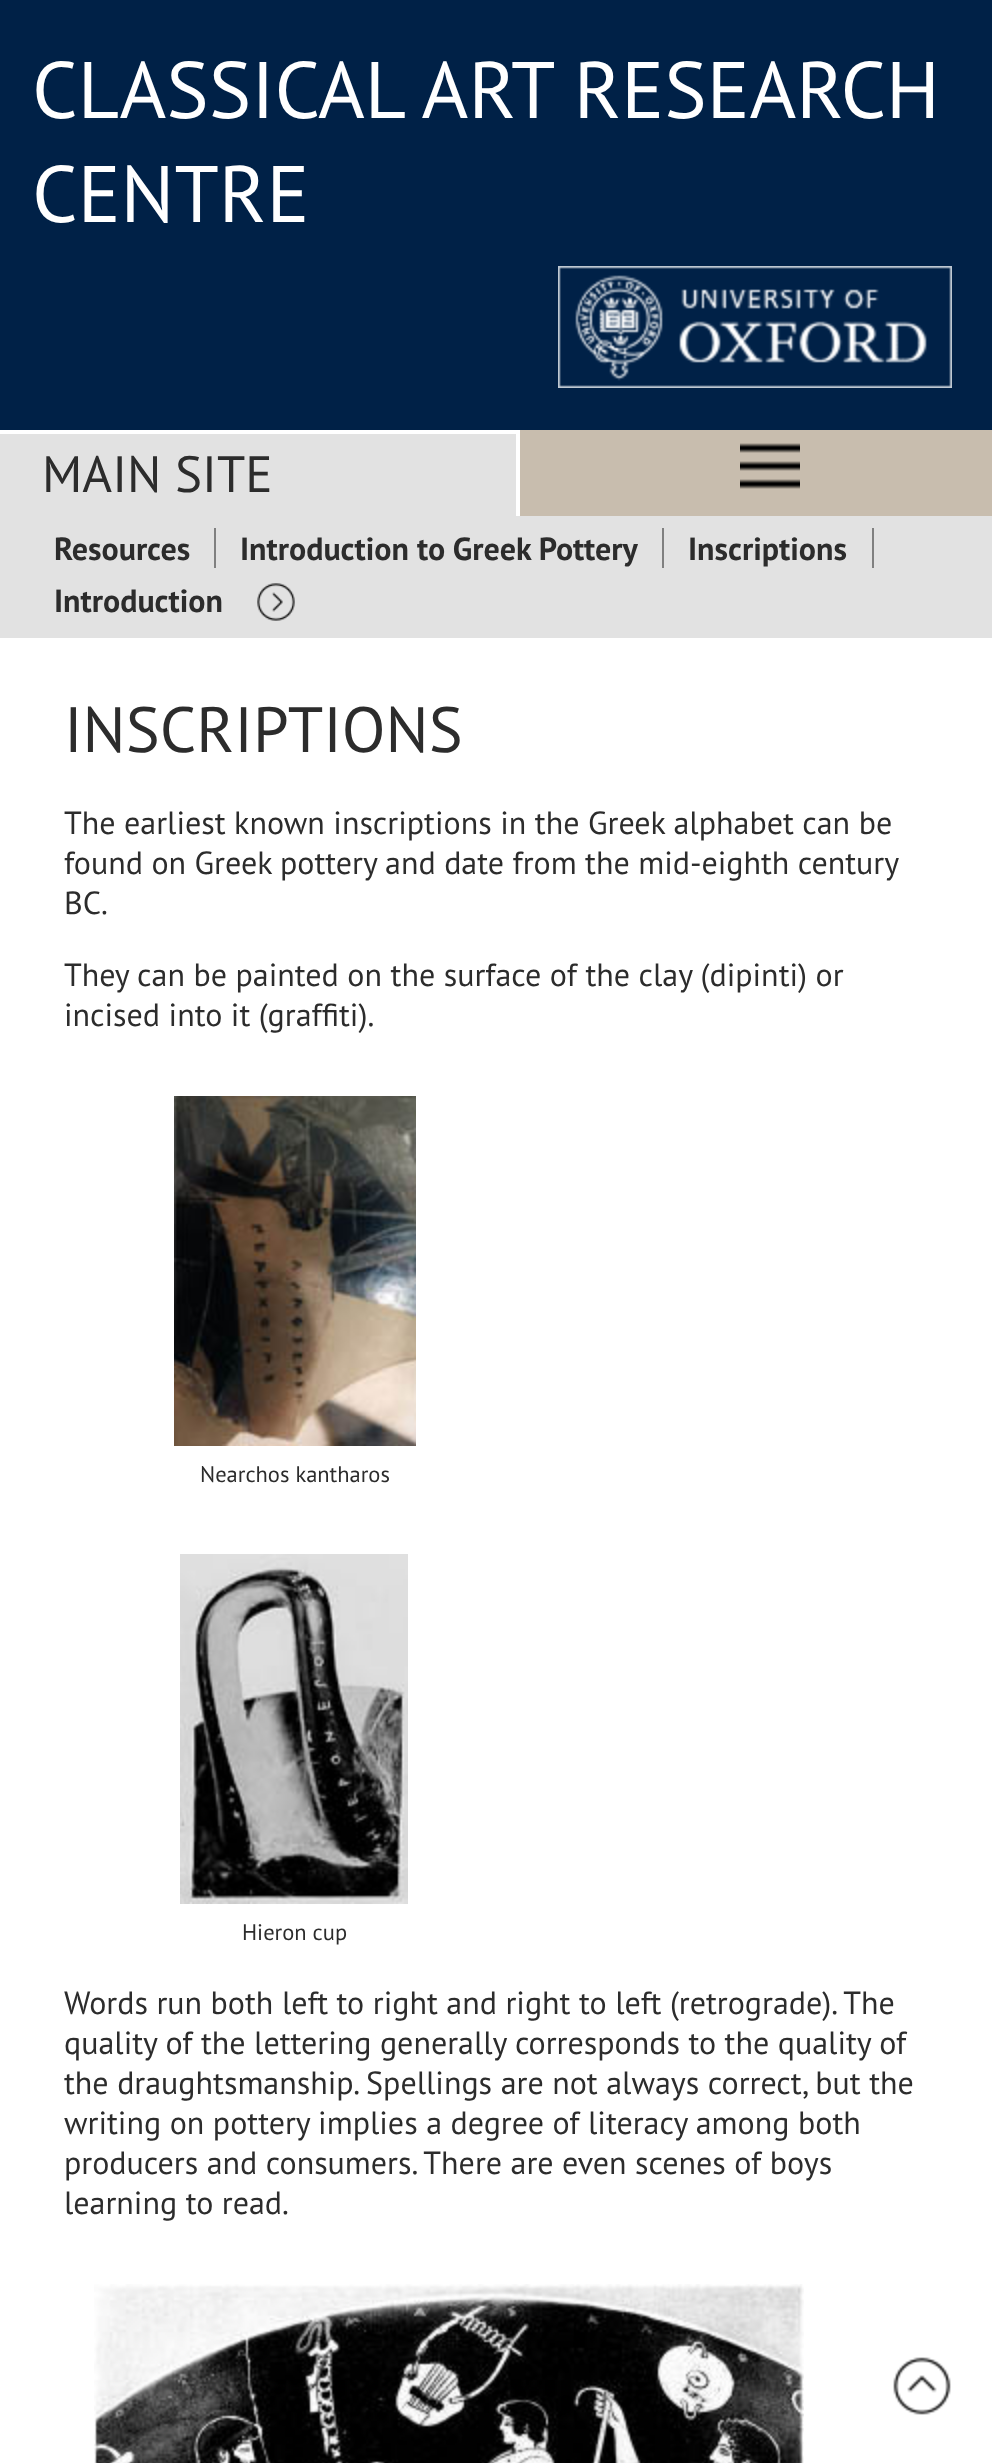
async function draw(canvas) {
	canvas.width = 992;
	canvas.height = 2463;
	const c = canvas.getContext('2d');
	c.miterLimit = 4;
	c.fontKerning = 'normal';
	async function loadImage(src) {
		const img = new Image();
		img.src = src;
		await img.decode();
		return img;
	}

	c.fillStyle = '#fff';
	c.fillRect(0, 0, 992, 2463);
	c.fillStyle = '#002147';
	c.fillRect(0, 0, 992, 430);
	c.font = '80px PT Sans';
	c.fillStyle = '#fff';
	c.fillText('CLASSICAL ART RESEARCH', 32, 118);
	c.fillText('CENTRE', 32, 222);
	c.drawImage(await loadImage('img1.png'), 558, 266, 394, 122);
	c.fillStyle = '#e2e2e2';
	c.fillRect(0, 434, 516, 82);
	c.font = '51px PT Sans';
	c.fillStyle = '#2c2c2c';
	c.fillText('MAIN SITE', 42, 492);
	c.fillStyle = '#c8bdae';
	c.fillRect(520, 430, 472, 86);
	c.drawImage(await loadImage('img2.png'), 740, 443, 60, 46);
	c.fillStyle = '#e2e2e2';
	c.fillRect(0, 516, 992, 122);
	c.fillStyle = '#808080';
	c.fillRect(214, 528, 2, 40);
	c.font = 'bold 32px PT Sans';
	c.fillStyle = '#2c2c2c';
	c.fillText('Resources', 54, 560);
	c.fillStyle = '#808080';
	c.fillRect(662, 528, 2, 40);
	c.fillStyle = '#2c2c2c';
	c.fillText('Introduction to Greek Pottery', 240, 560);
	c.fillStyle = '#808080';
	c.fillRect(872, 528, 2, 40);
	c.fillStyle = '#2c2c2c';
	c.fillText('Inscriptions', 688, 560);
	c.fillText('Introduction', 54, 612);
	c.drawImage(await loadImage('img3.png'), 257, 583, 38, 38);
	c.font = '64px PT Sans';
	c.fillText('INSCRIPTIONS', 64, 752);
	c.font = '32px PT Sans';
	c.fillText('The earliest known inscriptions in the Greek alphabet can be', 64, 834);
	c.wordSpacing = '-0.1px';
	c.fillText('found on Greek pottery and date from the mid-eighth century', 64, 874);
	c.wordSpacing = '0px';
	for (const [text, x, y] of [
		['BC.', 64, 914],
		['They can be painted on the surface of the clay (dipinti) or', 64, 986],
		['incised into it (graffiti).', 64, 1026],
	]) {
		c.fillText(text, x, y);
	}
	c.drawImage(await loadImage('img4.png'), 174, 1096, 242, 350);
	c.font = '22.5px PT Sans';
	c.fillText('Nearchos kantharos', 200, 1482);
	c.drawImage(await loadImage('img5.png'), 180, 1554, 228, 350);
	c.fillText('Hieron cup', 242, 1940);
	c.font = '32px PT Sans';
	for (const [text, x, y] of [
		['Words run both left to right and right to left (retrograde). The', 64, 2014],
		['quality of the lettering generally corresponds to the quality of', 64, 2054],
		['the draughtsmanship. Spellings are not always correct, but the', 64, 2094],
		['writing on pottery implies a degree of literacy among both', 64, 2134],
		['producers and consumers. There are even scenes of boys', 64, 2174],
		['learning to read.', 64, 2214],
	]) {
		c.fillText(text, x, y);
	}
	c.drawImage(await loadImage('img6.png'), 94, 2284, 710, 179);
	c.drawImage(await loadImage('img7.png'), 893, 2357, 58, 58);
}

draw(document.querySelector('canvas'));
